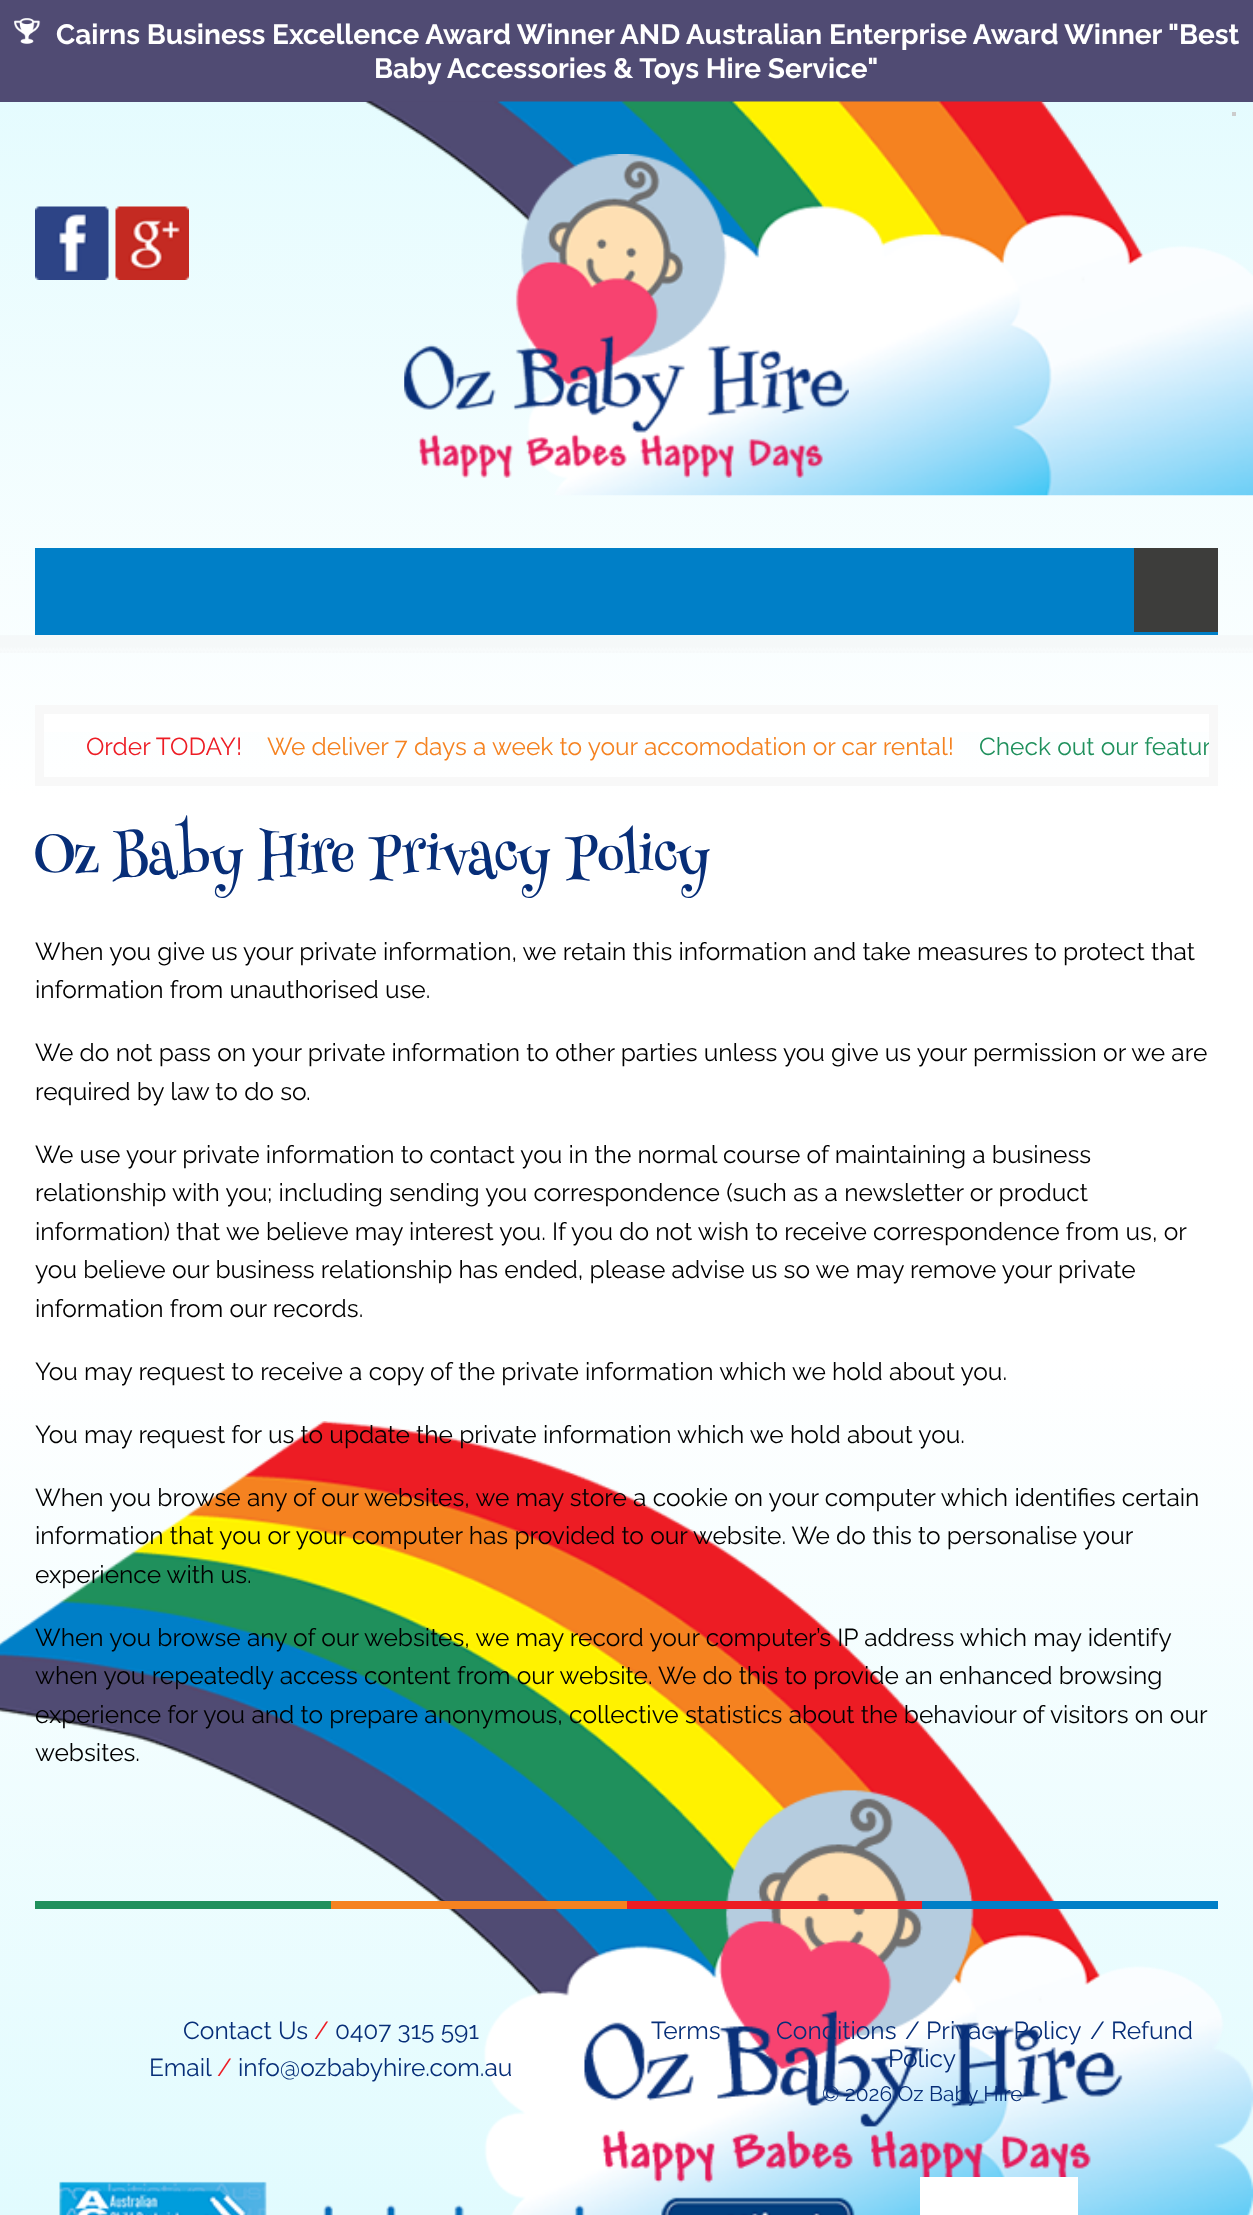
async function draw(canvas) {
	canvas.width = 1253;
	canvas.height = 2215;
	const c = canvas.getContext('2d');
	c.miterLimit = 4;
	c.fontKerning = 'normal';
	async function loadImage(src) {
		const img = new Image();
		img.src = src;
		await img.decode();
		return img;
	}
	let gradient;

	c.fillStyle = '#fff';
	c.fillRect(0, 0, 1253, 2215);
	gradient = c.createLinearGradient(626, 0, 627, 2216);
	gradient.addColorStop(0, '#e1fbfe');
	gradient.addColorStop(0.36, '#fff');
	gradient.addColorStop(0.61, '#fff');
	gradient.addColorStop(1, '#e1fbfe');
	c.fillStyle = gradient;
	c.fillRect(0, 102, 1253, 2113);
	c.fillStyle = '#504b73';
	c.fillRect(0, 0, 1253, 102);
	c.drawImage(await loadImage('img1.png'), 14, 18, 27, 26);
	c.font = 'bold 28px Raleway';
	c.fillStyle = '#fff';
	c.fillText('Cairns Business Excellence Award Winner AND Australian Enterprise Award Winner "Best', 56, 44);
	c.fillText('Baby Accessories & Toys Hire Service"', 374, 78);
	c.drawImage(await loadImage('img2.png'), 365, 101, 888, 395);
	c.fillStyle = '#ccc';
	c.fillRect(1232, 112, 4, 4);
	c.drawImage(await loadImage('img3.png'), 35, 206, 74, 74);
	c.drawImage(await loadImage('img4.png'), 115, 206, 74, 74);
	c.drawImage(await loadImage('img5.png'), 404, 154, 445, 324);
	c.fillStyle = '#007fc7';
	c.fillRect(35, 548, 1183, 87);
	c.fillStyle = '#3d3d3b';
	c.fillRect(1134, 548, 84, 84);
	c.drawImage(await loadImage('img6.png'), 0, 635, 1253, 18);
	c.fillStyle = '#fff';
	c.fillRect(44, 714, 1165, 18);
	c.strokeStyle = '#f8f8f8';
	c.lineWidth = 9;
	c.strokeRect(39.5, 709.5, 1174, 72);
	c.font = '24.5px Raleway';
	c.fillStyle = '#ed1c24';
	c.fillText('Order TODAY!', 86, 755);
	c.fillStyle = '#f58220';
	c.fillText('We deliver 7 days a week to your accomodation or car rental!', 267, 755);
	c.save();
	c.beginPath();
	c.rect(44, 714, 1165, 63);
	c.clip();
	c.fillStyle = '#1f905c';
	c.fillText('Check out our featur', 979, 755);
	c.restore();
	c.font = '52.5px Henny Penny';
	c.fillStyle = '#072e78';
	c.fillText('Oz Baby Hire Privacy Policy', 35, 874);
	c.font = '24.5px Raleway';
	c.fillStyle = '#000';
	for (const [text, x, y] of [
		['When you give us your private information, we retain this information and take measures to protect that', 35, 960],
		['information from unauthorised use.', 35, 998],
		['We do not pass on your private information to other parties unless you give us your permission or we are', 35, 1061],
		['required by law to do so.', 35, 1100],
		['We use your private information to contact you in the normal course of maintaining a business', 35, 1163],
		['relationship with you; including sending you correspondence (such as a newsletter or product', 35, 1201],
		['information) that we believe may interest you. If you do not wish to receive correspondence from us, or', 35, 1240],
		['you believe our business relationship has ended, please advise us so we may remove your private', 35, 1278],
		['information from our records.', 35, 1317],
		['You may request to receive a copy of the private information which we hold about you.', 35, 1380],
	]) {
		c.fillText(text, x, y);
	}
	c.drawImage(await loadImage('img7.png'), 0, 1421, 1253, 794);
	for (const [text, x, y] of [
		['You may request for us to update the private information which we hold about you.', 35, 1443],
		['When you browse any of our websites, we may store a cookie on your computer which identifies certain', 35, 1506],
		['information that you or your computer has provided to our website. We do this to personalise your', 35, 1544],
		['experience with us.', 35, 1583],
		['When you browse any of our websites, we may record your computer’s IP address which may identify', 35, 1646],
		['when you repeatedly access content from our website. We do this to provide an enhanced browsing', 35, 1684],
		['experience for you and to prepare anonymous, collective statistics about the behaviour of visitors on our', 35, 1723],
		['websites.', 35, 1761],
	]) {
		c.fillText(text, x, y);
	}
	for (const [x, y, w, h, color] of [
		[35, 1901, 296, 8, '#1f905c'],
		[331, 1901, 296, 8, '#f58220'],
		[627, 1901, 295, 8, '#ed1c24'],
		[922, 1901, 296, 8, '#007fc7'],
	]) {
		c.fillStyle = color;
		c.fillRect(x, y, w, h);
	}
	c.fillStyle = '#072e78';
	c.fillText('Contact Us', 183, 2039);
	c.fillStyle = '#ed1c24';
	c.fillText('/', 314, 2039);
	c.fillStyle = '#072e78';
	c.fillText('0407 315 591', 335, 2039);
	c.fillText('Email', 149, 2076);
	c.fillStyle = '#ed1c24';
	c.fillText('/', 217, 2076);
	c.fillStyle = '#072e78';
	for (const [text, x, y] of [
		['info@ozbabyhire.com.au', 238, 2076],
		['Terms', 651, 2039],
		['Conditions', 776, 2039],
		['/ Privacy Policy', 905, 2039],
		['/ Refund', 1090, 2039],
		['Policy', 888, 2067],
	]) {
		c.fillText(text, x, y);
	}
	c.font = '21px Raleway';
	c.fillText('© 2026 Oz Baby Hire', 822, 2101);
	c.drawImage(await loadImage('img8.png'), 59, 2181, 208, 34);
	c.drawImage(await loadImage('img9.png'), 323, 2204, 262, 11);
	c.drawImage(await loadImage('img10.png'), 661, 2197, 194, 18);
	c.fillStyle = '#fff';
	c.fillRect(920, 2177, 158, 38);
}

draw(document.querySelector('canvas'));
